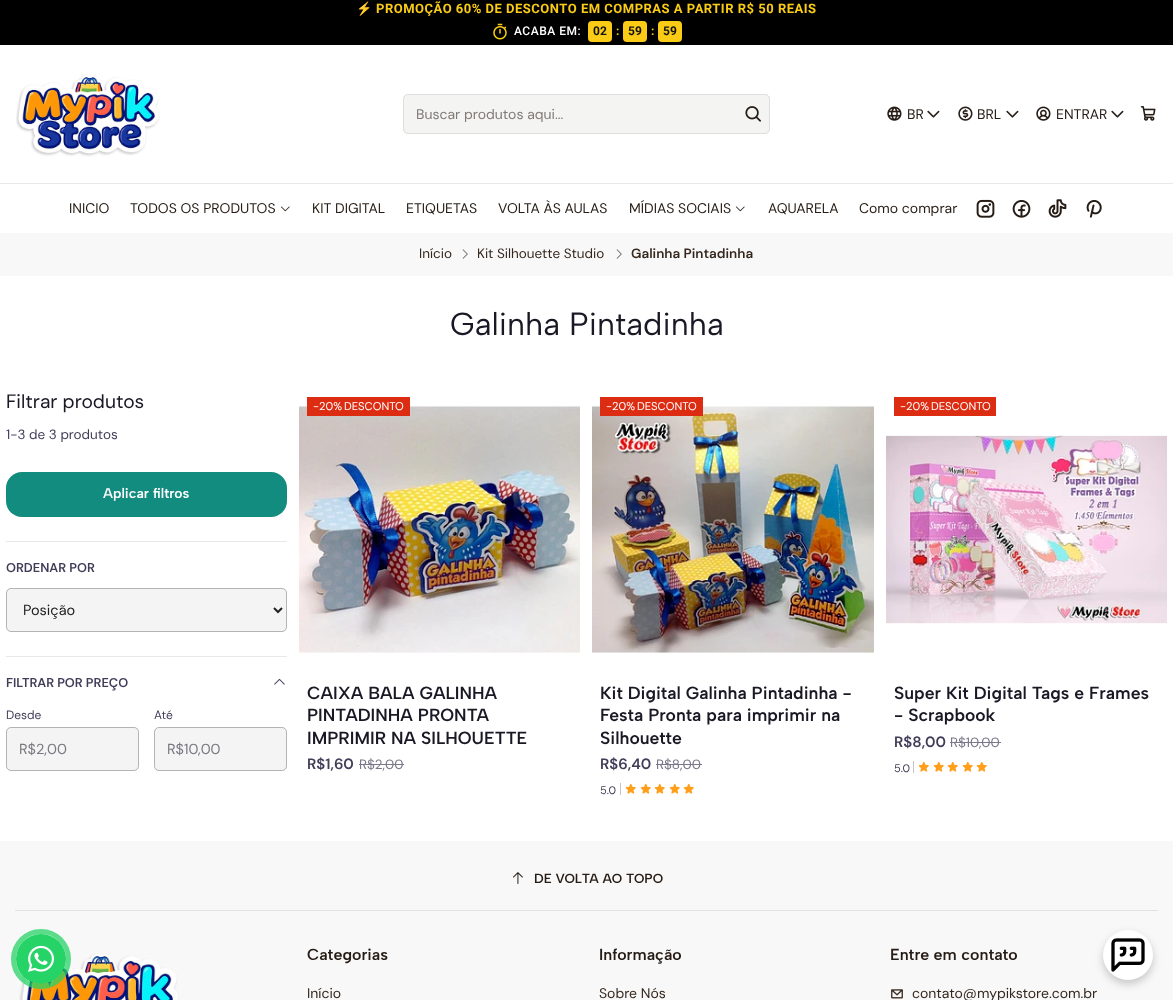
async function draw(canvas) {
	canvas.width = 1173;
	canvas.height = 1000;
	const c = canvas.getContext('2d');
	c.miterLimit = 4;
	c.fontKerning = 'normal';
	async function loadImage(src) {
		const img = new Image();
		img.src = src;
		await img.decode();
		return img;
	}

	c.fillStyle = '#fff';
	c.fillRect(0, 0, 1173, 1000);
	c.fillStyle = '#000';
	c.fillRect(0, 0, 1173, 45);
	c.letterSpacing = '0.5px';
	c.font = 'bold 13px Noto Color Emoji';
	c.fillStyle = '#facc15';
	c.fillText('⚡', 356, 13);
	c.font = 'bold 13px Roboto';
	c.fillText('PROMOÇÃO 60% DE DESCONTO EM COMPRAS A PARTIR R$ 50 REAIS', 376, 13);
	c.drawImage(await loadImage('img1.png'), 493, 23, 14, 17);
	c.font = '500 12px Roboto';
	c.fillStyle = '#fff';
	c.fillText('ACABA EM:', 514, 35);
	c.fillStyle = '#facc15';
	c.beginPath();
	c.roundRect(588, 21, 24, 21, 4);
	c.fill();
	c.letterSpacing = '0px';
	c.font = 'bold 12px Roboto';
	c.fillStyle = '#111';
	c.fillText('02', 593, 35);
	c.fillStyle = '#facc15';
	c.fillText(':', 616, 35);
	c.beginPath();
	c.roundRect(623, 21, 24, 21, 4);
	c.fill();
	c.fillStyle = '#111';
	c.fillText('59', 628, 35);
	c.fillStyle = '#facc15';
	c.fillText(':', 651, 35);
	c.beginPath();
	c.roundRect(658, 21, 24, 21, 4);
	c.fill();
	c.fillStyle = '#111';
	c.fillText('59', 663, 35);
	c.drawImage(await loadImage('img2.png'), 16, 74, 144, 83);
	c.fillStyle = '#f4f4f3';
	c.beginPath();
	c.roundRect(403, 94, 367, 40, 5);
	c.fill();
	c.beginPath();
	c.roundRect(403.5, 94.5, 366, 39, 4.5);
	c.strokeStyle = '#261c151a';
	c.stroke();
	c.font = '14px DM Sans';
	c.fillStyle = '#817b76';
	c.fillText('Buscar produtos aqui...', 416, 119);
	c.drawImage(await loadImage('img3.png'), 745, 106, 16, 16);
	c.drawImage(await loadImage('img4.png'), 887, 106, 15, 15);
	c.fillStyle = '#261c15';
	c.fillText('BR', 907, 119);
	c.drawImage(await loadImage('img5.png'), 927, 110, 13, 8);
	c.drawImage(await loadImage('img6.png'), 958, 106, 15, 15);
	c.fillText('BRL', 977, 119);
	c.drawImage(await loadImage('img5.png'), 1006, 110, 13, 8);
	c.drawImage(await loadImage('img7.png'), 1036, 106, 15, 15);
	c.fillText('ENTRAR', 1056, 119);
	c.drawImage(await loadImage('img5.png'), 1111, 110, 13, 8);
	c.drawImage(await loadImage('img8.png'), 1140, 106, 16, 15);
	c.fillStyle = '#e9e8e8';
	c.fillRect(0, 183, 1173, 1);
	c.fillStyle = '#261c15';
	c.fillText('INICIO', 69, 213);
	c.fillText('TODOS OS PRODUTOS', 130, 213);
	c.drawImage(await loadImage('img9.png'), 281, 206, 9, 6);
	for (const [text, x, y] of [
		['KIT DIGITAL', 312, 213],
		['ETIQUETAS', 406, 213],
		['VOLTA ÀS AULAS', 498, 213],
		['MÍDIAS SOCIAIS', 629, 213],
	]) {
		c.fillText(text, x, y);
	}
	c.drawImage(await loadImage('img9.png'), 736, 206, 9, 6);
	c.fillText('AQUARELA', 768, 213);
	c.fillText('Como comprar', 859, 213);
	c.drawImage(await loadImage('img10.png'), 976, 199, 19, 19);
	c.drawImage(await loadImage('img11.png'), 1012, 200, 19, 18);
	c.drawImage(await loadImage('img12.png'), 1048, 199, 19, 19);
	c.drawImage(await loadImage('img13.png'), 1086, 200, 16, 18);
	c.fillStyle = '#f8f8f8';
	c.fillRect(0, 233, 1173, 43);
	c.font = '13.5px DM Sans';
	c.fillStyle = '#35271d';
	c.fillText('Início', 419, 258);
	c.drawImage(await loadImage('img14.png'), 462, 249, 6, 10);
	c.fillText('Kit Silhouette Studio', 477, 258);
	c.drawImage(await loadImage('img14.png'), 616, 249, 6, 10);
	c.font = '600 13.5px DM Sans';
	c.fillText('Galinha Pintadinha', 631, 258);
	c.font = '32px Albert Sans';
	c.fillStyle = '#1b1825';
	c.fillText('Galinha Pintadinha', 450, 335);
	c.font = '19.25px DM Sans';
	c.fillText('Filtrar produtos', 6, 408);
	c.font = '13.5px DM Sans';
	c.fillStyle = '#413c58';
	c.fillText('1-3 de 3 produtos', 6, 439);
	c.fillStyle = '#128c7e';
	c.beginPath();
	c.roundRect(6, 472, 281, 45, 16);
	c.fill();
	c.font = '600 14px Albert Sans';
	c.fillStyle = '#fff';
	c.fillText('Aplicar filtros', 103, 498);
	c.fillStyle = '#e8e8e9';
	c.fillRect(6, 541, 281, 1);
	c.font = '600 12.75px DM Sans';
	c.fillStyle = '#413c58';
	c.fillText('ORDENAR POR', 6, 572);
	c.fillStyle = '#f4f4f4';
	c.beginPath();
	c.roundRect(6, 588, 281, 44, 5);
	c.fill();
	c.beginPath();
	c.roundRect(6.5, 588.5, 280, 43, 4.5);
	c.strokeStyle = '#2222224d';
	c.stroke();
	c.beginPath();
	c.moveTo(274, 608);
	c.lineTo(278, 612);
	c.lineTo(282, 608);
	c.strokeStyle = '#222';
	c.lineWidth = 2;
	c.stroke();
	c.font = '14.5px DM Sans';
	c.fillStyle = '#222';
	c.fillText('Posição', 23, 615);
	c.fillStyle = '#e8e8e9';
	c.fillRect(6, 656, 281, 1);
	c.font = '600 12.75px DM Sans';
	c.fillStyle = '#413c58';
	c.fillText('FILTRAR POR PREÇO', 6, 687);
	c.drawImage(await loadImage('img15.png'), 274, 678, 11, 7);
	c.font = '12px DM Sans';
	c.fillText('Desde', 6, 719);
	c.fillStyle = '#f4f4f4';
	c.beginPath();
	c.roundRect(6, 727, 133, 44, 5);
	c.fill();
	c.beginPath();
	c.roundRect(6.5, 727.5, 132, 43, 4.5);
	c.strokeStyle = '#2222224d';
	c.lineWidth = 1;
	c.stroke();
	c.font = '14.5px DM Sans';
	c.fillStyle = '#7a7980';
	c.fillText('R$2,00', 19, 754);
	c.font = '12px DM Sans';
	c.fillStyle = '#413c58';
	c.fillText('Até', 154, 719);
	c.fillStyle = '#f4f4f4';
	c.beginPath();
	c.roundRect(154, 727, 133, 44, 5);
	c.fill();
	c.beginPath();
	c.roundRect(154.5, 727.5, 132, 43, 4.5);
	c.stroke();
	c.font = '14.5px DM Sans';
	c.fillStyle = '#7a7980';
	c.fillText('R$10,00', 167, 754);
	c.drawImage(await loadImage('img16.png'), 299, 406, 281, 247);
	c.fillStyle = '#dc2d13';
	c.fillRect(307, 397, 103, 19);
	c.font = '11.25px DM Sans';
	c.fillStyle = '#fff';
	c.fillText('-20%', 313, 410);
	c.fillText('DESCONTO', 344, 410);
	c.font = '600 17.6px Albert Sans';
	c.fillStyle = '#1b1825';
	for (const [text, x, y] of [
		['CAIXA BALA GALINHA', 307, 699],
		['PINTADINHA PRONTA', 307, 721],
		['IMPRIMIR NA SILHOUETTE', 307, 744],
	]) {
		c.fillText(text, x, y);
	}
	c.font = '600 15px DM Sans';
	c.fillStyle = '#413c58';
	c.fillText('R$1,60', 307, 769);
	c.font = '13.5px DM Sans';
	c.fillStyle = '#7a778a';
	c.fillText('R$2,00', 359, 769);
	c.fillRect(359, 764, 45, 1);
	c.drawImage(await loadImage('img17.png'), 592, 406, 282, 247);
	c.fillStyle = '#dc2d13';
	c.fillRect(600, 397, 103, 19);
	c.font = '11.25px DM Sans';
	c.fillStyle = '#fff';
	c.fillText('-20%', 606, 410);
	c.fillText('DESCONTO', 637, 410);
	c.font = '600 17.6px Albert Sans';
	c.fillStyle = '#1b1825';
	for (const [text, x, y] of [
		['Kit Digital Galinha Pintadinha -', 600, 699],
		['Festa Pronta para imprimir na', 600, 721],
		['Silhouette', 600, 744],
	]) {
		c.fillText(text, x, y);
	}
	c.font = '600 15px DM Sans';
	c.fillStyle = '#413c58';
	c.fillText('R$6,40', 600, 769);
	c.font = '13.5px DM Sans';
	c.fillStyle = '#7a778a';
	c.fillText('R$8,00', 656, 769);
	c.fillRect(656, 764, 46, 1);
	c.font = '11px DM Sans';
	c.fillStyle = '#413c58';
	c.fillText('5.0', 600, 794);
	c.fillStyle = '#c6c5cd';
	c.fillRect(620, 783, 1, 12);
	c.drawImage(await loadImage('img18.png'), 625, 784, 11, 10);
	c.drawImage(await loadImage('img18.png'), 640, 784, 11, 10);
	c.drawImage(await loadImage('img18.png'), 654, 784, 11, 10);
	c.drawImage(await loadImage('img18.png'), 669, 784, 11, 10);
	c.drawImage(await loadImage('img18.png'), 683, 784, 11, 10);
	c.fillStyle = '#dc2d13';
	c.fillRect(894, 397, 102, 19);
	c.font = '11.25px DM Sans';
	c.fillStyle = '#fff';
	c.fillText('-20%', 900, 410);
	c.fillText('DESCONTO', 931, 410);
	c.drawImage(await loadImage('img19.png'), 886, 435, 281, 189);
	c.font = '600 17.6px Albert Sans';
	c.fillStyle = '#1b1825';
	c.fillText('Super Kit Digital Tags e Frames', 894, 699);
	c.fillText('- Scrapbook', 894, 721);
	c.font = '600 15px DM Sans';
	c.fillStyle = '#413c58';
	c.fillText('R$8,00', 894, 747);
	c.font = '13.5px DM Sans';
	c.fillStyle = '#7a778a';
	c.fillText('R$10,00', 950, 747);
	c.fillRect(950, 742, 51, 1);
	c.font = '11px DM Sans';
	c.fillStyle = '#413c58';
	c.fillText('5.0', 894, 772);
	c.fillStyle = '#c6c5cd';
	c.fillRect(913, 761, 1, 12);
	c.drawImage(await loadImage('img18.png'), 918, 762, 11, 10);
	c.drawImage(await loadImage('img18.png'), 933, 762, 11, 10);
	c.drawImage(await loadImage('img18.png'), 947, 762, 11, 10);
	c.drawImage(await loadImage('img18.png'), 962, 762, 11, 10);
	c.drawImage(await loadImage('img18.png'), 976, 762, 11, 10);
	c.fillStyle = '#f8f8f8';
	c.fillRect(0, 841, 1173, 159);
	c.drawImage(await loadImage('img20.png'), 513, 872, 10, 12);
	c.font = '600 13.25px Albert Sans';
	c.fillStyle = '#261c15';
	c.fillText('DE VOLTA AO TOPO', 534, 883);
	c.fillStyle = '#e3e2e1';
	c.fillRect(15, 910, 1143, 1);
	c.drawImage(await loadImage('img21.png'), 19, 953, 160, 47);
	c.font = '600 16px Albert Sans';
	c.fillStyle = '#261c15';
	c.fillText('Categorias', 307, 960);
	c.font = '14px DM Sans';
	c.fillStyle = '#35271d';
	c.fillText('Início', 307, 998);
	c.font = '600 16px Albert Sans';
	c.fillStyle = '#261c15';
	c.fillText('Informação', 599, 960);
	c.font = '14px DM Sans';
	c.fillStyle = '#35271d';
	c.fillText('Sobre Nós', 599, 998);
	c.font = '600 16px Albert Sans';
	c.fillStyle = '#261c15';
	c.fillText('Entre em contato', 890, 960);
	c.drawImage(await loadImage('img22.png'), 891, 989, 12, 10);
	c.font = '14px DM Sans';
	c.fillStyle = '#35271d';
	c.fillText('contato@mypikstore.com.br', 912, 998);
	c.fillStyle = '#25d366';
	c.beginPath();
	c.arc(41, 959, 25, 0, 2 * Math.PI);
	c.fill();
	c.drawImage(await loadImage('img23.png'), 28, 945, 26, 27);
	c.beginPath();
	c.arc(41, 959, 27.5, 0, 2 * Math.PI);
	c.strokeStyle = '#25d366bf';
	c.lineWidth = 5;
	c.stroke();
	c.fillStyle = '#00000033';
	c.filter = 'blur(4px)';
	c.beginPath();
	c.roundRect(1103, 934, 50, 50, 25);
	c.fill();
	c.filter = 'none';
	c.fillStyle = '#fff';
	c.beginPath();
	c.arc(1128, 955, 25, 0, 2 * Math.PI);
	c.fill();
	c.drawImage(await loadImage('img24.png'), 1111, 938, 34, 34);
}

draw(document.querySelector('canvas'));
